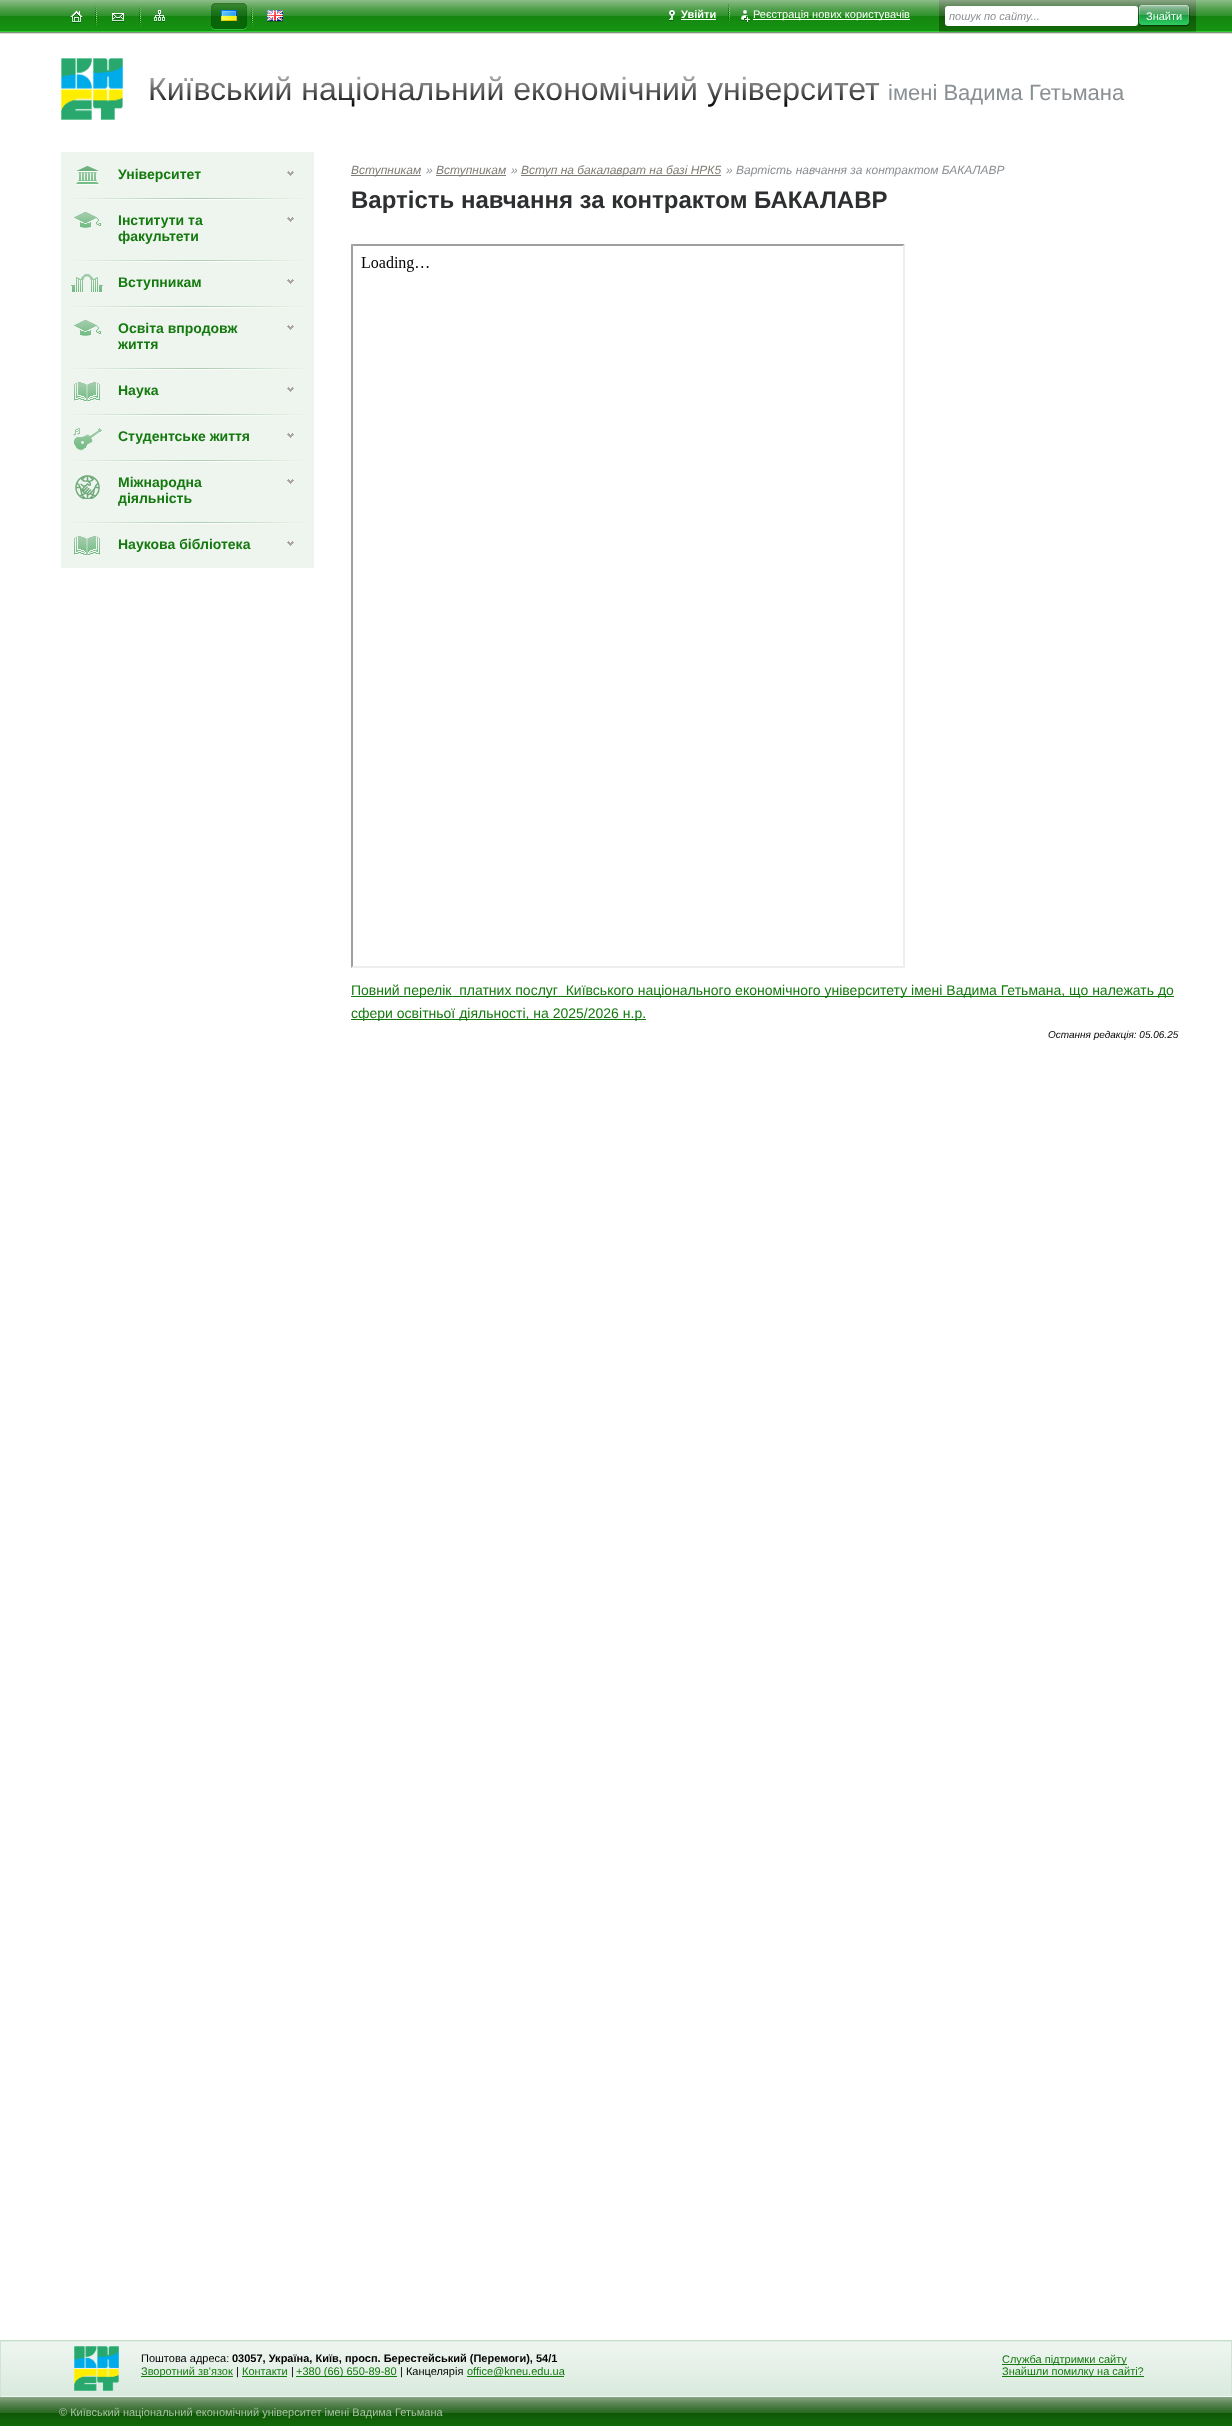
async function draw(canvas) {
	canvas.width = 1232;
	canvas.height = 2426;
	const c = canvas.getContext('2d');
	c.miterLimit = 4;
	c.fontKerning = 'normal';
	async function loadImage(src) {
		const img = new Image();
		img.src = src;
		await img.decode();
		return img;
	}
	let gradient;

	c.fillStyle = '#fff';
	c.fillRect(0, 0, 1232, 2426);
	c.drawImage(await loadImage('img1.png'), 0, 0, 1232, 34);
	c.drawImage(await loadImage('img2.png'), 70, 10, 13, 13);
	c.drawImage(await loadImage('img3.png'), 95, 6, 2, 21);
	c.drawImage(await loadImage('img4.png'), 112, 13, 12, 9);
	c.drawImage(await loadImage('img3.png'), 139, 6, 2, 21);
	c.drawImage(await loadImage('img5.png'), 154, 10, 11, 12);
	c.drawImage(await loadImage('img6.png'), 211, 3, 33, 27);
	c.drawImage(await loadImage('img7.png'), 244, 3, 3, 27);
	c.drawImage(await loadImage('img8.png'), 221, 10, 16, 11);
	c.drawImage(await loadImage('img3.png'), 251, 6, 2, 21);
	c.drawImage(await loadImage('img9.png'), 267, 10, 16, 11);
	c.fillStyle = '#0a6809';
	c.fillRect(267, 21, 16, 1);
	c.drawImage(await loadImage('img10.png'), 669, 10, 6, 11);
	c.font = 'bold 11px Liberation Sans';
	c.fillStyle = '#fff';
	c.fillText('Увійти', 681, 18);
	c.fillRect(681, 19, 35, 1);
	c.drawImage(await loadImage('img11.png'), 728, 4, 2, 17);
	c.drawImage(await loadImage('img12.png'), 741, 10, 9, 13);
	c.fillRect(753, 19, 157, 1);
	c.font = '11px Liberation Sans';
	c.fillText('Реєстрація нових користувачів', 753, 18);
	c.drawImage(await loadImage('img13.png'), 939, 0, 257, 32);
	c.beginPath();
	c.roundRect(945, 6, 193, 20, 3);
	c.fill();
	c.save();
	c.beginPath();
	c.rect(949, 10, 185, 12);
	c.clip();
	c.font = 'italic 11px Liberation Sans';
	c.fillStyle = '#8a8f93';
	c.fillText('пошук по сайту...', 949, 20);
	c.restore();
	c.drawImage(await loadImage('img14.png'), 1138, 4, 52, 23);
	c.fillText('Знайти', 1146, 20);
	c.drawImage(await loadImage('img15.png'), 61, 58, 62, 62);
	c.font = '32px Liberation Sans';
	gradient = c.createLinearGradient(423, 70, 423, 107);
	gradient.addColorStop(0, '#cfcfcf');
	gradient.addColorStop(1, '#000');
	c.fillStyle = gradient;
	c.fillText('Київський національний економічний', 148, 100);
	gradient = c.createLinearGradient(793, 70, 793, 107);
	gradient.addColorStop(0, '#cfcfcf');
	gradient.addColorStop(1, '#000');
	c.fillStyle = gradient;
	c.fillText('університет', 707, 100);
	c.font = '22px Liberation Sans';
	c.fillStyle = '#8a8f93';
	c.fillText('імені Вадима Гетьмана', 888, 100);
	c.fillStyle = '#eef5ee';
	c.fillRect(61, 152, 253, 416);
	c.drawImage(await loadImage('img16.png'), 76, 166, 23, 19);
	c.font = 'bold 14px Liberation Sans';
	c.fillStyle = '#14790e';
	c.fillText('Університет', 118, 179);
	c.drawImage(await loadImage('img17.png'), 287, 171, 7, 5);
	c.drawImage(await loadImage('img18.png'), 74, 198, 228, 2);
	c.drawImage(await loadImage('img19.png'), 74, 212, 27, 16);
	c.fillText('Інститути та', 118, 225);
	c.drawImage(await loadImage('img17.png'), 287, 217, 7, 5);
	c.fillText('факультети', 118, 241);
	c.drawImage(await loadImage('img18.png'), 74, 260, 228, 2);
	c.drawImage(await loadImage('img20.png'), 71, 274, 32, 19);
	c.fillText('Вступникам', 118, 287);
	c.drawImage(await loadImage('img17.png'), 287, 279, 7, 5);
	c.drawImage(await loadImage('img18.png'), 74, 306, 228, 2);
	c.drawImage(await loadImage('img19.png'), 74, 320, 27, 16);
	c.fillText('Освіта впродовж', 118, 333);
	c.drawImage(await loadImage('img17.png'), 287, 325, 7, 5);
	c.fillText('життя', 118, 349);
	c.drawImage(await loadImage('img18.png'), 74, 368, 228, 2);
	c.drawImage(await loadImage('img21.png'), 74, 382, 26, 20);
	c.fillText('Наука', 118, 395);
	c.drawImage(await loadImage('img17.png'), 287, 387, 7, 5);
	c.drawImage(await loadImage('img18.png'), 74, 414, 228, 2);
	c.drawImage(await loadImage('img22.png'), 73, 428, 29, 23);
	c.fillText('Студентське життя', 118, 441);
	c.drawImage(await loadImage('img17.png'), 287, 433, 7, 5);
	c.drawImage(await loadImage('img18.png'), 74, 460, 228, 2);
	c.drawImage(await loadImage('img23.png'), 75, 475, 25, 24);
	c.fillText('Міжнародна', 118, 487);
	c.drawImage(await loadImage('img17.png'), 287, 479, 7, 5);
	c.fillText('діяльність', 118, 503);
	c.drawImage(await loadImage('img18.png'), 74, 522, 228, 2);
	c.drawImage(await loadImage('img21.png'), 74, 536, 26, 20);
	c.fillText('Наукова бібліотека', 118, 549);
	c.drawImage(await loadImage('img17.png'), 287, 541, 7, 5);
	c.fillStyle = '#807c76';
	c.fillRect(351, 175, 70, 1);
	c.font = 'italic 12px Liberation Sans';
	c.fillText('Вступникам', 351, 174);
	c.fillStyle = '#8a8f93';
	c.fillText('»', 426, 174);
	c.fillStyle = '#807c76';
	c.fillRect(436, 175, 70, 1);
	c.fillText('Вступникам', 436, 174);
	c.fillStyle = '#8a8f93';
	c.fillText('»', 511, 174);
	c.fillStyle = '#807c76';
	c.fillRect(521, 175, 200, 1);
	c.fillText('Вступ на бакалаврат на базі НРК5', 521, 174);
	c.fillStyle = '#8a8f93';
	c.fillText('»', 726, 174);
	c.fillText('Вартість навчання за контрактом БАКАЛАВР', 736, 174);
	c.font = 'bold 24px Liberation Sans';
	c.fillStyle = '#2d2f30';
	c.fillText('Вартість навчання за контрактом БАКАЛАВР', 351, 208);
	c.fillStyle = '#9f9f9f';
	c.beginPath();
	c.moveTo(351, 244);
	c.lineTo(905, 244);
	c.lineTo(903, 246);
	c.lineTo(353, 246);
	c.closePath();
	c.fill();
	c.fillStyle = '#eee';
	c.beginPath();
	c.moveTo(905, 244);
	c.lineTo(905, 968);
	c.lineTo(903, 966);
	c.lineTo(903, 246);
	c.closePath();
	c.fill();
	c.beginPath();
	c.moveTo(905, 968);
	c.lineTo(351, 968);
	c.lineTo(353, 966);
	c.lineTo(903, 966);
	c.closePath();
	c.fill();
	c.fillStyle = '#9f9f9f';
	c.beginPath();
	c.moveTo(351, 968);
	c.lineTo(351, 244);
	c.lineTo(353, 246);
	c.lineTo(353, 966);
	c.closePath();
	c.fill();
	c.drawImage(await loadImage('img24.png'), 361, 256, 68, 16);
	c.fillStyle = '#14790e';
	c.fillRect(351, 996, 823, 1);
	c.font = '14px Liberation Sans';
	c.fillText('Повний перелік  платних послуг  Київського національного економічного університету імені Вадима Гетьмана, що належать до', 351, 995);
	c.fillRect(351, 1019, 295, 1);
	c.fillText('сфери освітньої діяльності, на 2025/2026 н.р.', 351, 1018);
	c.font = 'italic 10px Liberation Sans';
	c.fillStyle = '#000';
	c.fillText('Остання редакція: 05.06.25', 1048, 1038);
	c.drawImage(await loadImage('img25.png'), 1, 2341, 1230, 55);
	for (const [x, y, w, h, color] of [
		[0, 2340, 1232, 1, '#c3ddca'],
		[1231, 2340, 1, 57, '#cfe4d4'],
		[0, 2396, 1232, 1, '#f2f8f3'],
		[0, 2340, 1, 57, '#cfe4d4'],
	]) {
		c.fillStyle = color;
		c.fillRect(x, y, w, h);
	}
	c.drawImage(await loadImage('img26.png'), 74, 2346, 45, 45);
	c.font = '11px Liberation Sans';
	c.fillStyle = '#000';
	c.fillText('Поштова адреса:', 141, 2362);
	c.font = 'bold 11px Liberation Sans';
	c.fillText('03057, Україна, Київ, просп. Берестейський (Перемоги), 54/1', 232, 2362);
	c.fillStyle = '#14790e';
	c.fillRect(141, 2376, 92, 1);
	c.font = '11px Liberation Sans';
	c.fillText('Зворотний зв\'язок', 141, 2375);
	c.fillStyle = '#000';
	c.fillText('|', 236, 2375);
	c.fillStyle = '#14790e';
	c.fillText('Контакти', 242, 2375);
	c.fillRect(242, 2376, 45, 1);
	c.fillStyle = '#000';
	c.fillText('|', 291, 2375);
	c.fillStyle = '#14790e';
	c.fillRect(296, 2376, 101, 1);
	c.fillText('+380 (66) 650-89-80', 296, 2375);
	c.fillStyle = '#000';
	c.fillText('| Канцелярія', 400, 2375);
	c.fillStyle = '#14790e';
	c.fillRect(467, 2376, 97, 1);
	c.fillText('office@kneu.edu.ua', 467, 2375);
	c.fillRect(1002, 2364, 125, 1);
	c.fillText('Служба підтримки сайту', 1002, 2363);
	c.fillRect(1002, 2376, 142, 1);
	c.fillText('Знайшли помилку на сайті?', 1002, 2375);
	c.drawImage(await loadImage('img27.png'), 0, 2397, 1232, 29);
	c.fillStyle = '#a9c2a5';
	c.fillText('© Київський національний економічний університет імені Вадима Гетьмана', 59, 2416);
}

draw(document.querySelector('canvas'));
